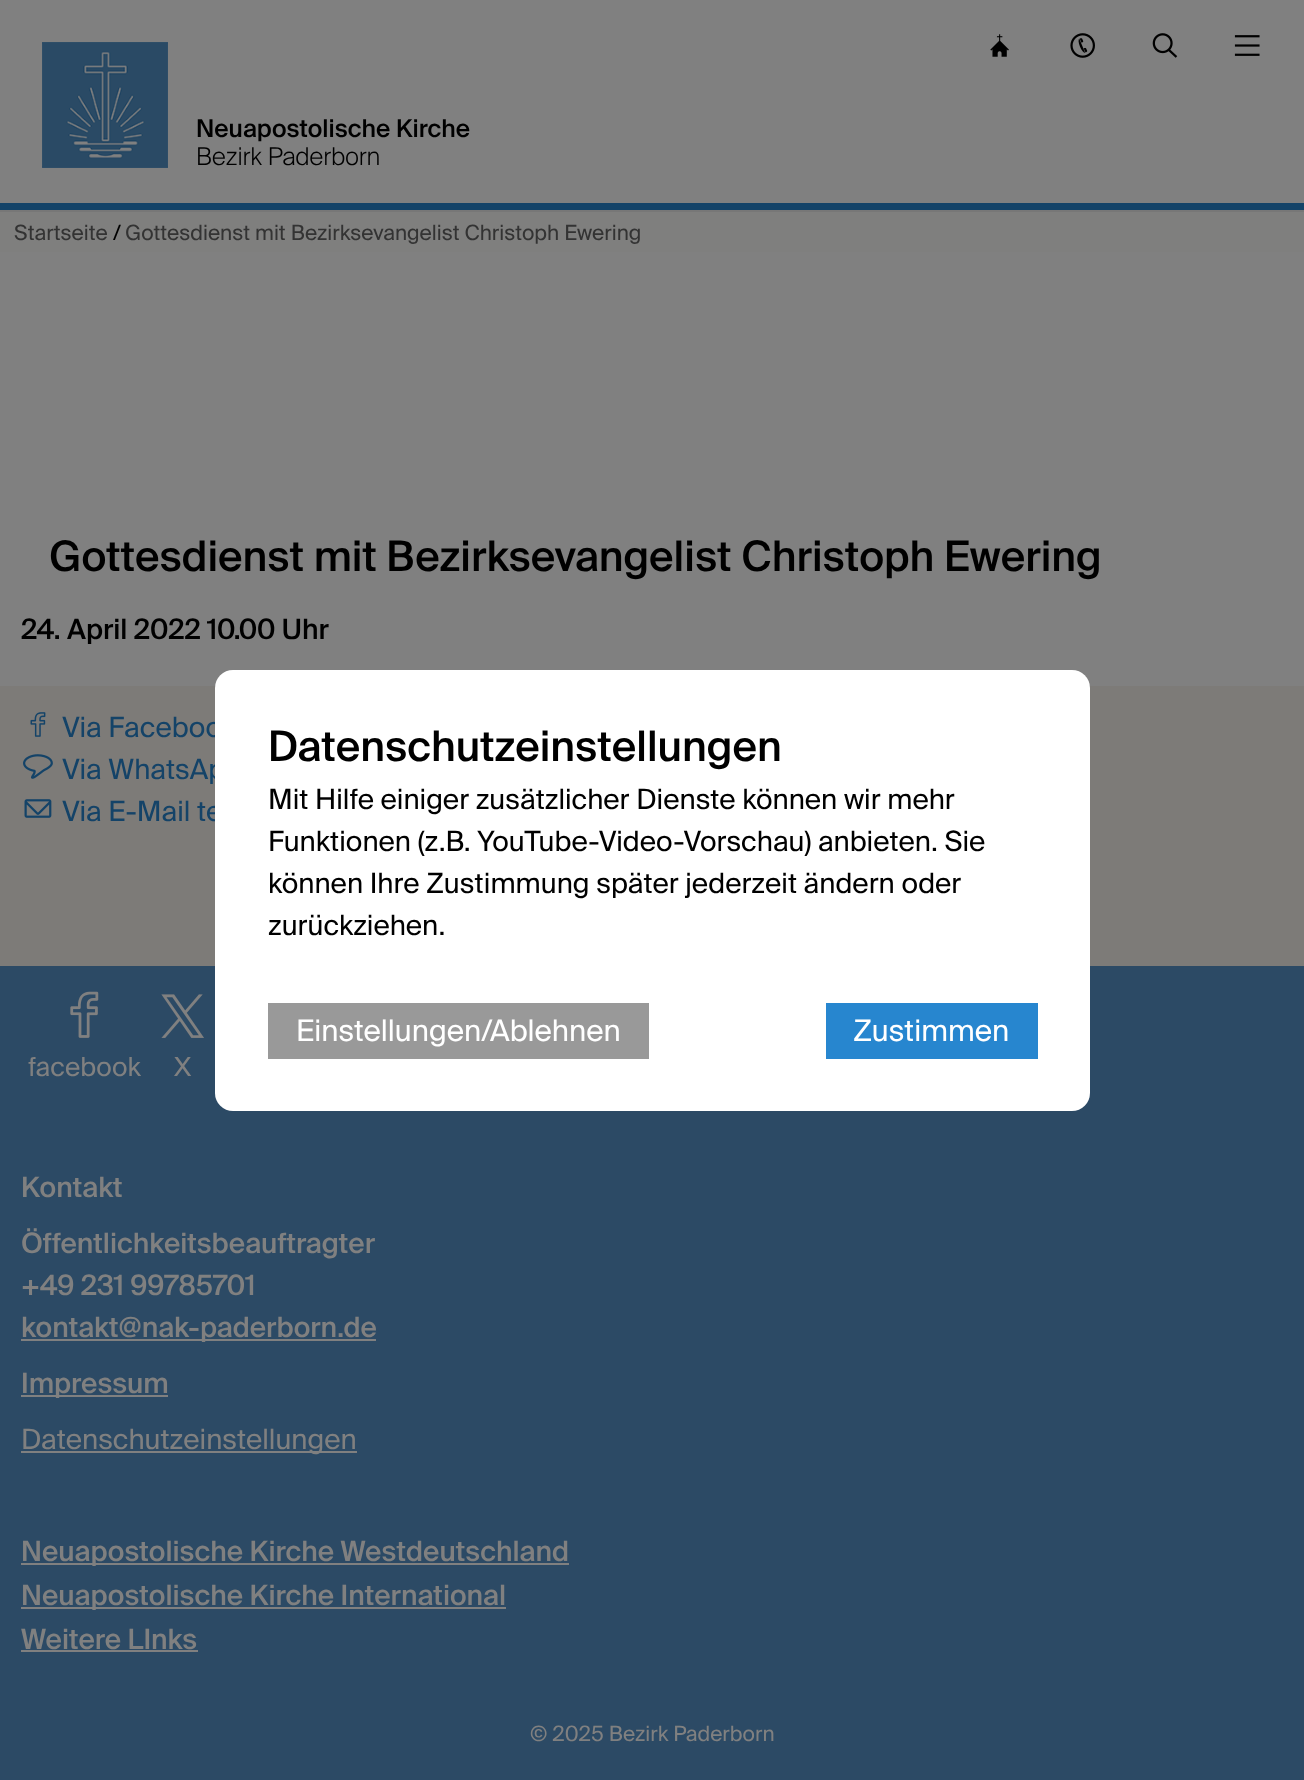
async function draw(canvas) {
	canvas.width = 1304;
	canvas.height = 1780;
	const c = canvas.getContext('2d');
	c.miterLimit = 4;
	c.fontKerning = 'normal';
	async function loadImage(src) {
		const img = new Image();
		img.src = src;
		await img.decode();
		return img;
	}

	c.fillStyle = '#7d7b78';
	c.fillRect(0, 0, 1304, 1780);
	c.fillStyle = '#808080';
	c.fillRect(0, 0, 1304, 203);
	c.fillStyle = '#144368';
	c.fillRect(0, 203, 1304, 7);
	c.drawImage(await loadImage('img1.png'), 42, 42, 126, 126);
	c.font = '500 24.5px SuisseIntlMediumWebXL';
	c.fillStyle = '#000';
	c.fillText('Neuapostolische Kirche', 196, 137);
	c.drawImage(await loadImage('img2.png'), 990, 34, 19, 23);
	c.drawImage(await loadImage('img3.png'), 1070, 33, 25, 25);
	c.drawImage(await loadImage('img4.png'), 1152, 33, 26, 25);
	c.drawImage(await loadImage('img5.png'), 1234, 35, 26, 21);
	c.font = '300 24.5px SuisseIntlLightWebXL';
	c.fillText('Bezirk Paderborn', 196, 165);
	c.fillStyle = '#777';
	c.fillRect(0, 210, 1304, 2);
	c.fillStyle = '#7f7f7e';
	c.fillRect(0, 212, 1304, 40);
	c.font = '21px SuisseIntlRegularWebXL';
	c.fillStyle = '#333';
	c.fillText('Startseite', 14, 240);
	c.fillStyle = '#000';
	c.fillText('/', 113, 240);
	c.fillStyle = '#333';
	c.fillText('Gottesdienst mit Bezirksevangelist Christoph Ewering', 125, 240);
	c.fillStyle = '#808080';
	c.fillRect(0, 252, 1304, 434);
	c.font = '500 42px SuisseIntlMediumWebXL';
	c.fillStyle = '#000';
	c.fillText('Gottesdienst mit Bezirksevangelist Christoph Ewering', 49, 571);
	c.font = '500 28px SuisseIntlMediumWebXL';
	c.fillText('24. April 2022 10.00 Uhr', 21, 639);
	c.drawImage(await loadImage('img6.png'), 30, 712, 16, 25);
	c.font = '28px SuisseIntlRegularWebXL';
	c.fillStyle = '#144368';
	c.fillText('Via Faceboo', 62, 737);
	c.drawImage(await loadImage('img7.png'), 23, 754, 30, 25);
	c.fillText('Via WhatsAp', 62, 779);
	c.drawImage(await loadImage('img8.png'), 24, 799, 28, 19);
	c.fillText('Via E-Mail te', 62, 821);
	c.fillStyle = '#2c4a65';
	c.fillRect(0, 966, 1304, 814);
	c.fillStyle = '#fff';
	c.beginPath();
	c.roundRect(215, 670, 875, 441, 18);
	c.fill();
	c.font = '500 42px SuisseIntlMediumWebXL';
	c.fillStyle = '#000';
	c.fillText('Datenschutzeinstellungen', 268, 761);
	c.font = '28px SuisseIntlRegularWebXL';
	for (const [text, x, y] of [
		['Mit Hilfe einiger zusätzlicher Dienste können wir mehr', 268, 809],
		['Funktionen (z.B. YouTube-Video-Vorschau) anbieten. Sie', 268, 851],
		['können Ihre Zustimmung später jederzeit ändern oder', 268, 893],
		['zurückziehen.', 268, 935],
	]) {
		c.fillText(text, x, y);
	}
	c.fillStyle = '#999';
	c.fillRect(268, 1003, 381, 56);
	c.font = '29.75px SuisseIntlRegularWebXL';
	c.fillStyle = '#fff';
	c.fillText('Einstellungen/Ablehnen', 296, 1041);
	c.fillStyle = '#2786cf';
	c.fillRect(826, 1003, 212, 56);
	c.fillStyle = '#fff';
	c.fillText('Zustimmen', 853, 1041);
	c.drawImage(await loadImage('img9.png'), 70, 991, 29, 47);
	c.font = '26.25px SuisseIntlRegularWebXL';
	c.fillStyle = '#808080';
	c.fillText('facebook', 28, 1076);
	c.drawImage(await loadImage('img10.png'), 161, 994, 43, 44);
	c.fillText('X', 174, 1076);
	c.font = '500 28px SuisseIntlMediumWebXL';
	for (const [text, x, y] of [
		['Kontakt', 21, 1197],
		['Öffentlichkeitsbeauftragter', 21, 1253],
		['+49 231 99785701', 21, 1295],
	]) {
		c.fillText(text, x, y);
	}
	c.fillRect(21, 1339, 355, 2);
	c.fillText('kontakt@nak-paderborn.de', 21, 1337);
	c.fillRect(21, 1395, 147, 2);
	c.fillText('Impressum', 21, 1393);
	c.fillRect(21, 1451, 336, 2);
	c.font = '28px SuisseIntlRegularWebXL';
	c.fillText('Datenschutzeinstellungen', 21, 1449);
	c.fillRect(21, 1563, 548, 2);
	c.font = '500 28px SuisseIntlMediumWebXL';
	c.fillText('Neuapostolische Kirche Westdeutschland', 21, 1561);
	c.fillRect(21, 1607, 485, 2);
	c.fillText('Neuapostolische Kirche International', 21, 1605);
	c.fillText('Weitere LInks', 21, 1649);
	c.fillRect(21, 1650, 177, 2);
	c.font = '21px SuisseIntlRegularWebXL';
	c.fillText('© 2025 Bezirk Paderborn', 530, 1741);
}

draw(document.querySelector('canvas'));
